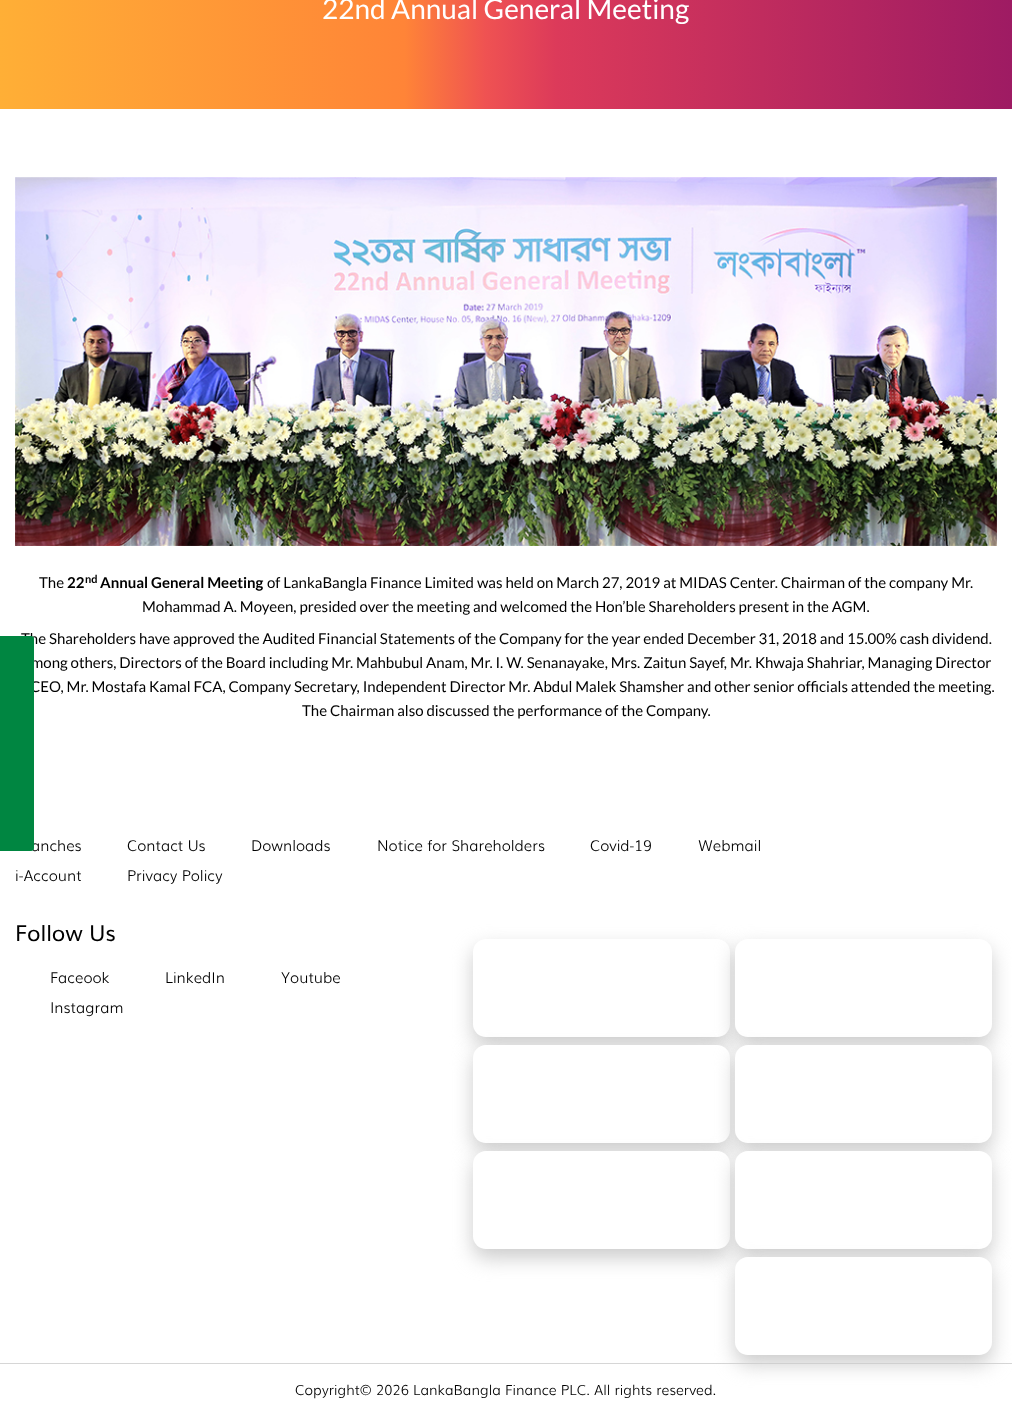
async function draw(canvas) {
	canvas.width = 1012;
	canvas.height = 1414;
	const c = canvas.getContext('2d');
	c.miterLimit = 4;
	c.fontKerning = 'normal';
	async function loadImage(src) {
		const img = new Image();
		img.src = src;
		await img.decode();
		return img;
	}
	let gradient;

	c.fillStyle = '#fff';
	c.fillRect(0, 0, 1012, 1414);
	gradient = c.createLinearGradient(0, 9, 1012, 9);
	gradient.addColorStop(0, '#ffaf36');
	gradient.addColorStop(0.4, '#ff8437');
	gradient.addColorStop(0.48, '#ef5252');
	gradient.addColorStop(0.55, '#dc3a5a');
	gradient.addColorStop(1, '#9e1b63');
	c.fillStyle = gradient;
	c.fillRect(0, 0, 1012, 109);
	c.font = '28px Lato';
	c.fillStyle = '#fff';
	c.fillText('22nd Annual General Meeting', 322, 19);
	c.drawImage(await loadImage('img1.png'), 15, 177, 982, 369);
	c.font = '15px Lato';
	c.fillStyle = '#000';
	c.fillText('The', 39, 588);
	c.font = 'bold 15px Lato';
	c.fillText('22', 67, 588);
	c.font = 'bold 11px Lato';
	c.fillText('nd', 85, 583);
	c.font = 'bold 15px Lato';
	c.fillText('Annual General Meeting', 100, 588);
	c.font = '15px Lato';
	for (const [text, x, y] of [
		['of LankaBangla Finance Limited was held on March 27, 2019 at MIDAS Center. Chairman of the company Mr.', 267, 588],
		['Mohammad A. Moyeen, presided over the meeting and welcomed the Hon’ble Shareholders present in the AGM.', 142, 612],
		['The Shareholders have approved the Audited Financial Statements of the Company for the year ended December 31, 2018 and 15.00% cash dividend.', 21, 644],
		['mong others, Directors of the Board including Mr. Mahbubul Anam, Mr. I. W. Senanayake, Mrs. Zaitun Sayef, Mr. Khwaja Shahriar, Managing Director', 31, 668],
		['CEO, Mr. Mostafa Kamal FCA, Company Secretary, Independent Director Mr. Abdul Malek Shamsher and other senior officials attended the meeting.', 30, 692],
		['The Chairman also discussed the performance of the Company.', 302, 716],
	]) {
		c.fillText(text, x, y);
	}
	c.font = '300 15px Muli';
	c.fillText('anches', 31, 851);
	c.fillStyle = '#008641';
	c.beginPath();
	c.roundRect(0, 636, 34, 215, [0, 3, 3, 0]);
	c.fill();
	c.fillStyle = '#000';
	for (const [text, x, y] of [
		['Contact Us', 127, 851],
		['Downloads', 251, 851],
		['Notice for Shareholders', 377, 851],
		['Covid-19', 590, 851],
		['Webmail', 698, 851],
		['i-Account', 15, 881],
		['Privacy Policy', 127, 881],
	]) {
		c.fillText(text, x, y);
	}
	c.font = '22px Muli';
	c.fillText('Follow Us', 15, 941);
	c.font = '300 15px Muli';
	for (const [text, x, y] of [
		['Faceook', 50, 983],
		['LinkedIn', 165, 983],
		['Youtube', 281, 983],
		['Instagram', 50, 1013],
	]) {
		c.fillText(text, x, y);
	}
	c.fillStyle = '#ccc';
	c.filter = 'blur(10px)';
	c.beginPath();
	c.roundRect(473, 948, 257, 98, 13);
	c.fill();
	c.filter = 'none';
	c.fillStyle = '#fff';
	c.beginPath();
	c.roundRect(473, 939, 257, 98, 13);
	c.fill();
	c.fillStyle = '#ccc';
	c.filter = 'blur(10px)';
	c.beginPath();
	c.roundRect(735, 948, 257, 98, 13);
	c.fill();
	c.filter = 'none';
	c.fillStyle = '#fff';
	c.beginPath();
	c.roundRect(735, 939, 257, 98, 13);
	c.fill();
	c.fillStyle = '#ccc';
	c.filter = 'blur(10px)';
	c.beginPath();
	c.roundRect(473, 1054, 257, 98, 13);
	c.fill();
	c.filter = 'none';
	c.fillStyle = '#fff';
	c.beginPath();
	c.roundRect(473, 1045, 257, 98, 13);
	c.fill();
	c.fillStyle = '#ccc';
	c.filter = 'blur(10px)';
	c.beginPath();
	c.roundRect(735, 1054, 257, 98, 13);
	c.fill();
	c.filter = 'none';
	c.fillStyle = '#fff';
	c.beginPath();
	c.roundRect(735, 1045, 257, 98, 13);
	c.fill();
	c.fillStyle = '#ccc';
	c.filter = 'blur(10px)';
	c.beginPath();
	c.roundRect(473, 1160, 257, 98, 13);
	c.fill();
	c.filter = 'none';
	c.fillStyle = '#fff';
	c.beginPath();
	c.roundRect(473, 1151, 257, 98, 13);
	c.fill();
	c.fillStyle = '#ccc';
	c.filter = 'blur(10px)';
	c.beginPath();
	c.roundRect(735, 1160, 257, 98, 13);
	c.fill();
	c.filter = 'none';
	c.fillStyle = '#fff';
	c.beginPath();
	c.roundRect(735, 1151, 257, 98, 13);
	c.fill();
	c.fillStyle = '#d6d6d6';
	c.fillRect(0, 1363, 1012, 1);
	c.fillStyle = '#ccc';
	c.filter = 'blur(10px)';
	c.beginPath();
	c.roundRect(735, 1266, 257, 98, 13);
	c.fill();
	c.filter = 'none';
	c.fillStyle = '#fff';
	c.beginPath();
	c.roundRect(735, 1257, 257, 98, 13);
	c.fill();
	c.font = '300 14px Muli';
	c.fillStyle = '#000';
	c.fillText('Copyright© 2026 LankaBangla Finance PLC. All rights reserved.', 295, 1395);
}

draw(document.querySelector('canvas'));
